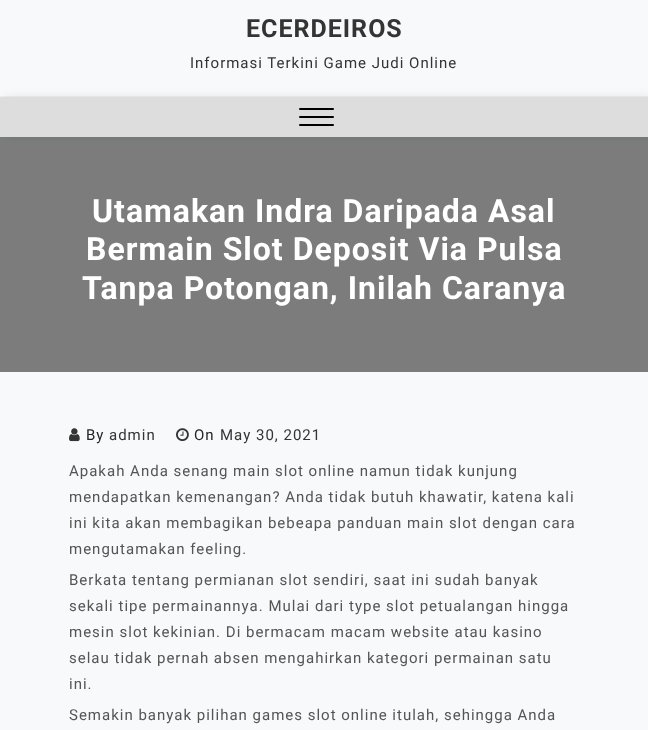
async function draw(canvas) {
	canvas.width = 648;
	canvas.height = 730;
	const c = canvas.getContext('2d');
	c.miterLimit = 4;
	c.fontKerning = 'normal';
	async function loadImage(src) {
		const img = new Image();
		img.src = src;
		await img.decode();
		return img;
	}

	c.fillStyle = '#f8f9fa';
	c.fillRect(0, 0, 648, 730);
	c.fillStyle = '#eee';
	c.fillRect(0, 96, 648, 1);
	c.letterSpacing = '1px';
	c.font = 'bold 25px Roboto';
	c.fillStyle = '#343434';
	c.fillText('ECERDEIROS', 246, 37);
	c.font = '15px Roboto';
	c.fillText('Informasi Terkini Game Judi Online', 190, 68);
	c.fillStyle = '#05050614';
	c.filter = 'blur(5px)';
	c.beginPath();
	c.rect(5, 97, 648, 40);
	c.fill();
	c.filter = 'none';
	c.fillStyle = '#ddd';
	c.fillRect(0, 97, 648, 40);
	c.fillStyle = '#000';
	c.beginPath();
	c.roundRect(299, 108, 35, 2, 1);
	c.fill();
	c.beginPath();
	c.roundRect(299, 116, 35, 2, 1);
	c.fill();
	c.beginPath();
	c.roundRect(299, 124, 35, 2, 1);
	c.fill();
	c.fillStyle = '#00000080';
	c.fillRect(0, 137, 648, 235);
	c.font = 'bold 32px Roboto';
	c.fillStyle = '#fff';
	for (const [text, x, y] of [
		['Utamakan Indra Daripada Asal', 92, 222],
		['Bermain Slot Deposit Via Pulsa', 86, 260],
		['Tanpa Potongan, Inilah Caranya', 82, 299],
	]) {
		c.fillText(text, x, y);
	}
	c.drawImage(await loadImage('img1.png'), 69, 428, 11, 14);
	c.font = '15px Roboto';
	c.fillStyle = '#252525';
	c.fillText('By', 86, 440);
	c.fillStyle = '#343434';
	c.fillText('admin', 109, 440);
	c.drawImage(await loadImage('img2.png'), 176, 428, 13, 14);
	c.fillStyle = '#252525';
	c.fillText('On', 194, 440);
	c.fillStyle = '#343434';
	c.fillText('May 30, 2021', 220, 440);
	c.fillStyle = '#555';
	for (const [text, x, y] of [
		['Apakah Anda senang main slot online namun tidak kunjung', 69, 476],
		['mendapatkan kemenangan? Anda tidak butuh khawatir, katena kali', 69, 502],
		['ini kita akan membagikan bebeapa panduan main slot dengan cara', 69, 528],
		['mengutamakan feeling.', 69, 554],
		['Berkata tentang permianan slot sendiri, saat ini sudah banyak', 69, 585],
		['sekali tipe permainannya. Mulai dari type slot petualangan hingga', 69, 611],
		['mesin slot kekinian. Di bermacam macam website atau kasino', 69, 637],
		['selau tidak pernah absen mengahirkan kategori permainan satu', 69, 663],
		['ini.', 69, 689],
		['Semakin banyak pilihan games slot online itulah, sehingga Anda', 69, 720],
	]) {
		c.fillText(text, x, y);
	}
}

draw(document.querySelector('canvas'));
